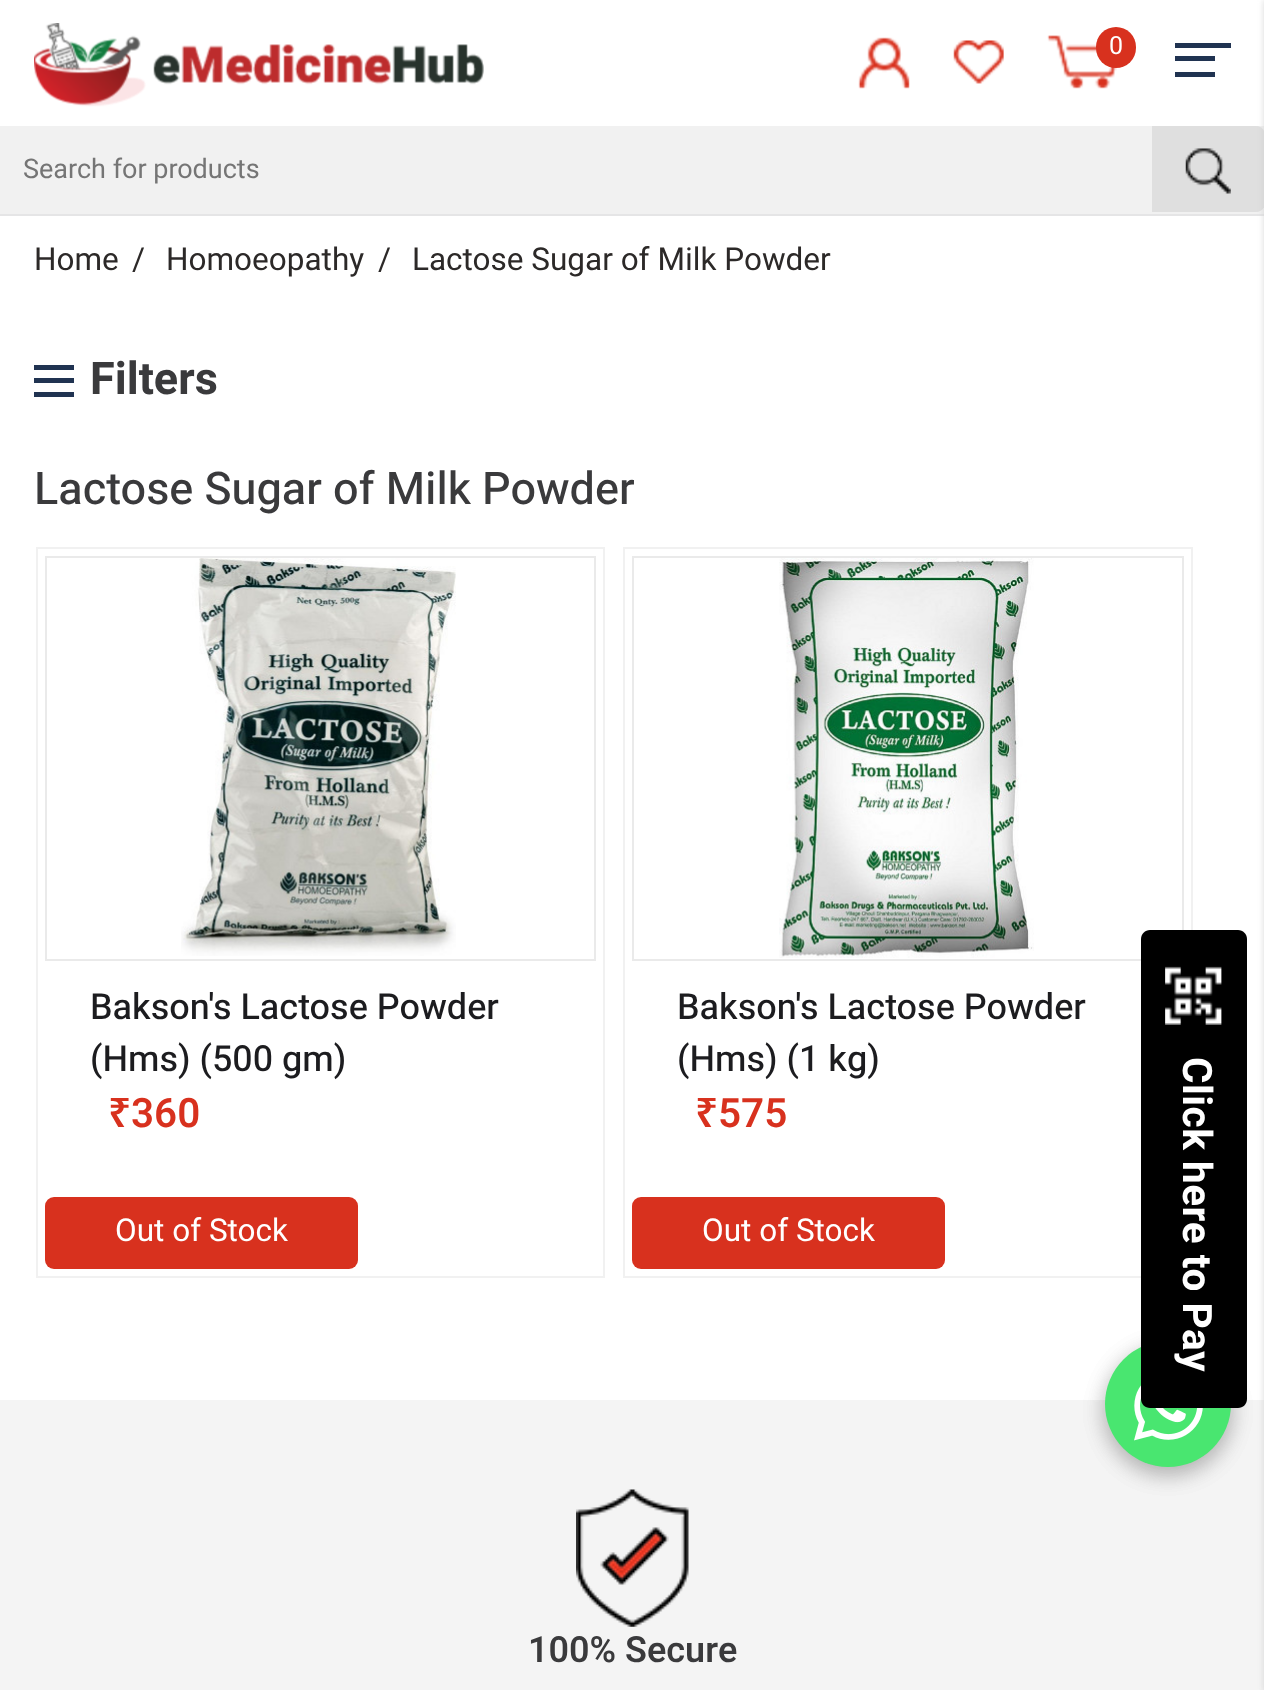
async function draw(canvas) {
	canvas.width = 1264;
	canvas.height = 1690;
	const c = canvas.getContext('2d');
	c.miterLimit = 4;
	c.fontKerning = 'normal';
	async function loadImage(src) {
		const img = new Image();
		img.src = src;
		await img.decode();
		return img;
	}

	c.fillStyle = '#fff';
	c.fillRect(0, 0, 1264, 1690);
	c.fillStyle = '#e5e5e6';
	c.fillRect(0, 214, 1264, 2);
	c.drawImage(await loadImage('img1.png'), 34, 23, 450, 84);
	c.drawImage(await loadImage('img2.png'), 858, 37, 52, 52);
	c.drawImage(await loadImage('img3.png'), 953, 40, 51, 44);
	c.drawImage(await loadImage('img4.png'), 1047, 35, 70, 54);
	c.fillStyle = '#d8311e';
	c.beginPath();
	c.roundRect(1096, 27, 40, 41, 20);
	c.fill();
	c.font = '25px Heebo';
	c.fillStyle = '#fff';
	c.fillText('0', 1109, 54);
	c.fillStyle = '#f1f1f1';
	c.fillRect(0, 126, 1264, 88);
	c.font = '27px Heebo';
	c.fillStyle = '#757575';
	c.fillText('Search for products', 23, 178);
	c.fillStyle = '#dfdfdf';
	c.beginPath();
	c.moveTo(1152, 126);
	c.lineTo(1256, 126);
	c.bezierCurveTo(1261, 126, 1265, 130, 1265, 135);
	c.lineTo(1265, 203);
	c.bezierCurveTo(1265, 208, 1261, 212, 1256, 212);
	c.lineTo(1152, 212);
	c.closePath();
	c.fill();
	c.drawImage(await loadImage('img5.png'), 1185, 148, 46, 46);
	for (const [x, y, w, h, color] of [
		[1175, 56, 40, 5, '#203351'],
		[1175, 43, 56, 5, '#203351'],
		[1175, 72, 40, 5, '#203351'],
		[0, 1400, 1264, 290, '#f4f4f4'],
	]) {
		c.fillStyle = color;
		c.fillRect(x, y, w, h);
	}
	c.fillStyle = '#ccc';
	c.filter = 'blur(3.5px)';
	c.beginPath();
	c.rect(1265, 0, 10, 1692);
	c.fill();
	c.filter = 'none';
	c.font = '31.5px Heebo';
	c.fillStyle = '#2c2928';
	for (const [text, x, y] of [
		['Home', 34, 270],
		['/', 132, 270],
		['Homoeopathy', 166, 270],
		['/', 378, 270],
		['Lactose Sugar of Milk Powder', 412, 270],
	]) {
		c.fillText(text, x, y);
	}
	for (const [x, y, w, h, color] of [
		[34, 378, 40, 5, '#203351'],
		[34, 365, 40, 5, '#203351'],
		[34, 392, 40, 5, '#203351'],
	]) {
		c.fillStyle = color;
		c.fillRect(x, y, w, h);
	}
	c.font = 'bold 45px Heebo';
	c.fillStyle = '#3a3a3c';
	c.fillText('Filters', 90, 394);
	c.font = '500 45px Heebo';
	c.fillText('Lactose Sugar of Milk Powder', 34, 504);
	c.strokeStyle = '#f1f1f1';
	c.lineWidth = 2;
	c.strokeRect(37, 548, 567, 729);
	c.strokeStyle = '#eaeaea';
	c.strokeRect(46, 557, 549, 403);
	c.drawImage(await loadImage('img6.png'), 181, 558, 275, 398);
	c.font = '500 36px Heebo';
	c.fillStyle = '#1c1c1f';
	c.fillText('Bakson\'s Lactose Powder', 90, 1019);
	c.fillText('(Hms) (500 gm)', 90, 1071);
	c.font = '600 40.5px Noto Sans';
	c.fillStyle = '#d8311e';
	c.fillText('₹', 108, 1127);
	c.font = '600 40.5px Heebo';
	c.fillText('360', 131, 1127);
	c.beginPath();
	c.roundRect(45, 1197, 313, 72, 9);
	c.fill();
	c.font = '31.5px Heebo';
	c.fillStyle = '#fff';
	c.fillText('Out of Stock', 115, 1241);
	c.strokeStyle = '#f1f1f1';
	c.strokeRect(624, 548, 568, 729);
	c.strokeStyle = '#eaeaea';
	c.strokeRect(633, 557, 550, 403);
	c.drawImage(await loadImage('img7.png'), 779, 558, 255, 400);
	c.font = '500 36px Heebo';
	c.fillStyle = '#1c1c1f';
	c.fillText('Bakson\'s Lactose Powder', 677, 1019);
	c.fillText('(Hms) (1 kg)', 677, 1071);
	c.font = '600 40.5px Noto Sans';
	c.fillStyle = '#d8311e';
	c.fillText('₹', 695, 1127);
	c.font = '600 40.5px Heebo';
	c.fillText('575', 718, 1127);
	c.beginPath();
	c.roundRect(632, 1197, 313, 72, 9);
	c.fill();
	c.font = '31.5px Heebo';
	c.fillStyle = '#fff';
	c.fillText('Out of Stock', 702, 1241);
	c.fillStyle = '#00000029';
	c.filter = 'blur(11px)';
	c.beginPath();
	c.roundRect(1105, 1348, 126, 126, 63);
	c.fill();
	c.filter = 'none';
	c.filter = 'blur(11px)';
	c.beginPath();
	c.roundRect(1105, 1348, 126, 126, 63);
	c.fill();
	c.filter = 'none';
	c.fillStyle = '#49e670';
	c.beginPath();
	c.arc(1168, 1404, 63, 0, 2 * Math.PI);
	c.fill();
	c.drawImage(await loadImage('img9.png'), 1134, 1385, 69, 56);
	c.fillStyle = '#000';
	c.beginPath();
	c.moveTo(1247, 939);
	c.lineTo(1247, 1399);
	c.bezierCurveTo(1247, 1404, 1243, 1408, 1238, 1408);
	c.lineTo(1150, 1408);
	c.bezierCurveTo(1145, 1408, 1141, 1404, 1141, 1399);
	c.lineTo(1141, 939);
	c.bezierCurveTo(1141, 934, 1145, 930, 1150, 930);
	c.lineTo(1238, 930);
	c.bezierCurveTo(1243, 930, 1247, 934, 1247, 939);
	c.closePath();
	c.fill();
	c.drawImage(await loadImage('img8.png'), 1165, 966, 57, 59);
	c.letterSpacing = '0.5px';
	c.font = 'bold 40.5px Heebo';
	c.fillStyle = '#fff';
	c.save();
	c.translate(1183, 1057);
	c.rotate(90 * Math.PI / 180);
	c.fillText('Click here to Pay', 0, 0);
	c.restore();
	c.drawImage(await loadImage('img10.png'), 576, 1489, 113, 138);
	c.letterSpacing = '0px';
	c.font = '600 36px Heebo';
	c.fillStyle = '#3a3a3c';
	c.fillText('100% Secure', 528, 1662);
}

draw(document.querySelector('canvas'));
